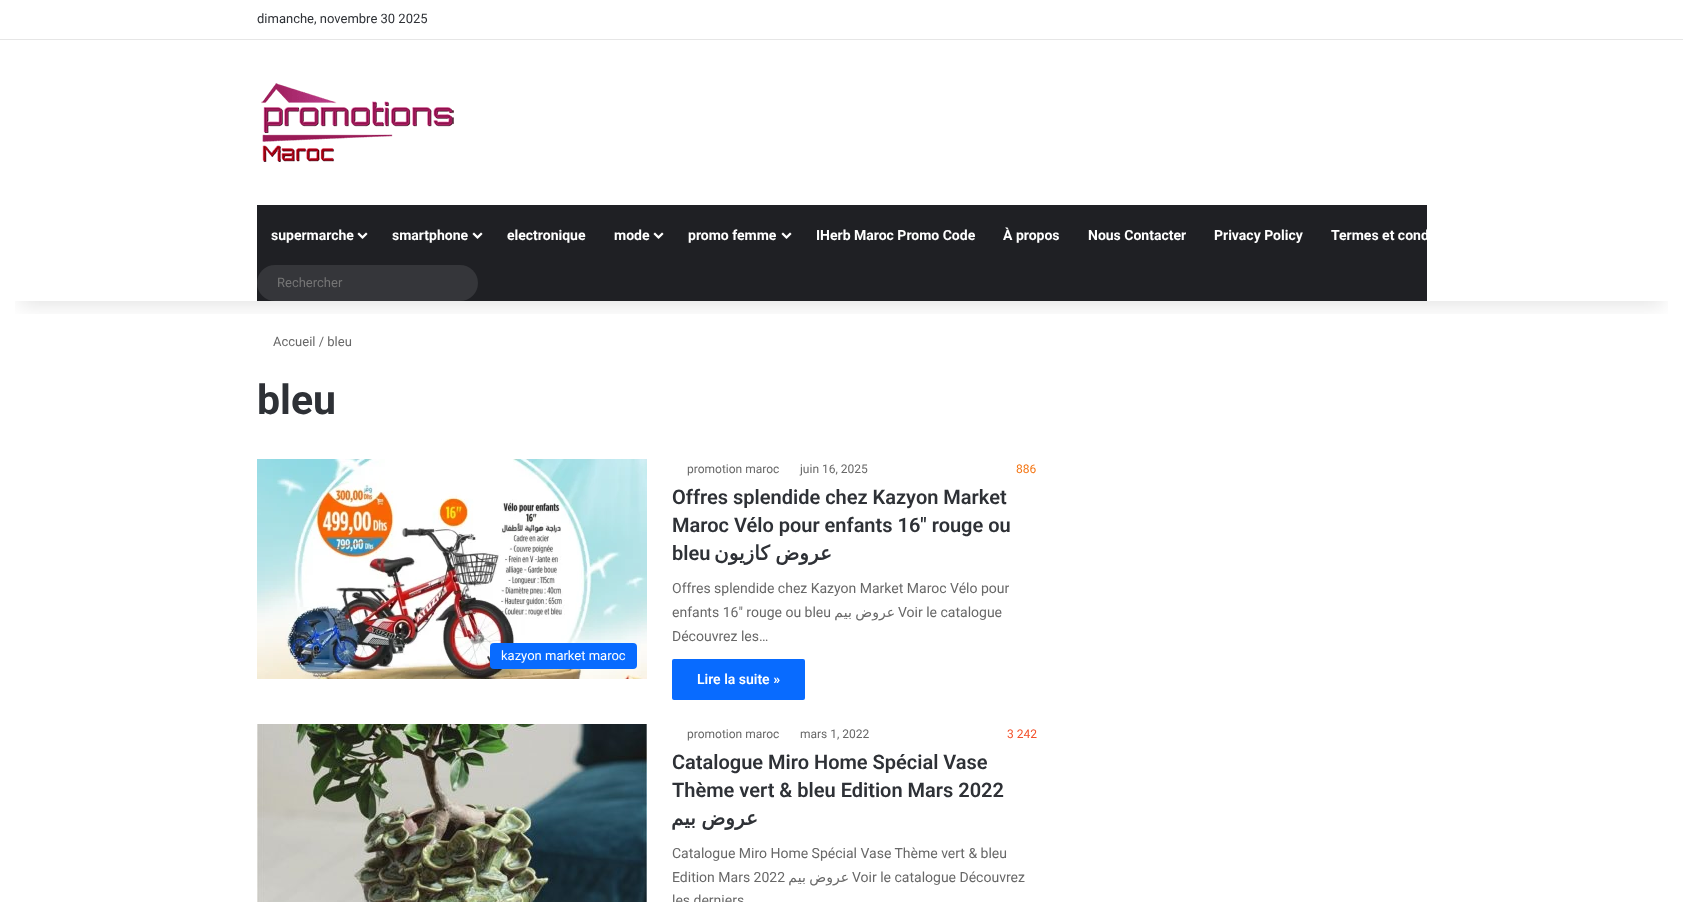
async function draw(canvas) {
	canvas.width = 1683;
	canvas.height = 902;
	const c = canvas.getContext('2d');
	c.miterLimit = 4;
	c.fontKerning = 'normal';
	async function loadImage(src) {
		const img = new Image();
		img.src = src;
		await img.decode();
		return img;
	}

	c.fillStyle = '#fff';
	c.fillRect(0, 0, 1683, 902);
	c.save();
	c.beginPath();
	c.rect(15, 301, 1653, 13);
	c.clip();
	c.fillStyle = '#0000001a';
	c.filter = 'blur(10px)';
	c.beginPath();
	c.rect(20, 44, 1643, 262);
	c.fill();
	c.filter = 'none';
	c.restore();
	c.fillStyle = '#e6e6e6';
	c.fillRect(0, 39, 1683, 1);
	c.font = '13px Roboto';
	c.fillStyle = '#2e3136';
	c.fillText('dimanche, novembre 30 2025', 257, 23);
	c.drawImage(await loadImage('img1.png'), 261, 83, 193, 79);
	c.fillStyle = '#1f2024';
	c.fillRect(257, 205, 1170, 96);
	c.font = 'bold 14px Roboto';
	c.fillStyle = '#fff';
	c.fillText('supermarche', 271, 240);
	c.drawImage(await loadImage('img2.png'), 357, 232, 11, 7);
	c.fillText('smartphone', 392, 240);
	c.drawImage(await loadImage('img2.png'), 472, 232, 11, 7);
	c.fillText('electronique', 507, 240);
	c.fillText('mode', 614, 240);
	c.drawImage(await loadImage('img2.png'), 653, 232, 11, 7);
	c.fillText('promo femme', 688, 240);
	c.drawImage(await loadImage('img2.png'), 781, 232, 11, 7);
	for (const [text, x, y] of [
		['IHerb Maroc Promo Code', 816, 240],
		['À propos', 1003, 240],
		['Nous Contacter', 1088, 240],
		['Privacy Policy', 1214, 240],
		['Termes et cond', 1331, 240],
	]) {
		c.fillText(text, x, y);
	}
	c.fillStyle = '#35363a';
	c.beginPath();
	c.roundRect(257, 265, 221, 36, 18);
	c.fill();
	c.font = '13px Roboto';
	c.fillStyle = '#757575';
	c.fillText('Rechercher', 277, 287);
	c.fillStyle = '#686868';
	c.fillText('Accueil / bleu', 273, 346);
	c.font = 'bold 41px Roboto';
	c.fillStyle = '#2e3136';
	c.fillText('bleu', 257, 414);
	c.drawImage(await loadImage('img3.png'), 257, 459, 390, 220);
	c.fillStyle = '#086bff';
	c.beginPath();
	c.roundRect(490, 643, 147, 26, 4);
	c.fill();
	c.font = '13px Roboto';
	c.fillStyle = '#fff';
	c.fillText('kazyon market maroc', 501, 660);
	c.font = '12px Roboto';
	c.fillStyle = '#686868';
	c.fillText('promotion maroc', 687, 473);
	c.fillText('juin 16, 2025', 800, 473);
	c.fillStyle = '#f47614';
	c.fillText('886', 1016, 473);
	c.font = '600 20px Roboto';
	c.fillStyle = '#2e3136';
	for (const [text, x, y] of [
		['Offres splendide chez Kazyon Market', 672, 504],
		['Maroc Vélo pour enfants 16″ rouge ou', 672, 532],
		['bleu', 672, 560],
	]) {
		c.fillText(text, x, y);
	}
	c.wordSpacing = '-1px';
	c.direction = 'rtl';
	c.font = 'bold 20px DejaVu Sans';
	c.fillText('عروض كازيون', 832, 560);
	c.wordSpacing = '0px';
	c.direction = 'ltr';
	c.font = '14px Roboto';
	c.fillStyle = '#686868';
	c.fillText('Offres splendide chez Kazyon Market Maroc Vélo pour', 672, 593);
	c.fillText('enfants 16″ rouge ou bleu', 672, 617);
	c.wordSpacing = '-1px';
	c.direction = 'rtl';
	c.font = '14px DejaVu Sans';
	c.fillText('عروض بيم', 895, 617);
	c.wordSpacing = '0px';
	c.direction = 'ltr';
	c.font = '14px Roboto';
	c.fillText('Voir le catalogue', 898, 617);
	c.fillText('Découvrez les…', 672, 641);
	c.fillStyle = '#086bff';
	c.beginPath();
	c.roundRect(672, 659, 133, 41, 2);
	c.fill();
	c.font = '600 14px Roboto';
	c.fillStyle = '#fff';
	c.fillText('Lire la suite »', 697, 684);
	c.drawImage(await loadImage('img4.png'), 257, 724, 390, 178);
	c.font = '12px Roboto';
	c.fillStyle = '#686868';
	c.fillText('promotion maroc', 687, 738);
	c.fillText('mars 1, 2022', 800, 738);
	c.fillStyle = '#f3522c';
	c.fillText('3 242', 1007, 738);
	c.font = '600 20px Roboto';
	c.fillStyle = '#2e3136';
	c.fillText('Catalogue Miro Home Spécial Vase', 672, 769);
	c.fillText('Thème vert & bleu Edition Mars 2022', 672, 797);
	c.wordSpacing = '-1px';
	c.direction = 'rtl';
	c.font = 'bold 20px DejaVu Sans';
	c.fillText('عروض بيم', 758, 825);
	c.wordSpacing = '0px';
	c.direction = 'ltr';
	c.font = '14px Roboto';
	c.fillStyle = '#686868';
	c.fillText('Catalogue Miro Home Spécial Vase Thème vert & bleu', 672, 858);
	c.fillText('Edition Mars 2022', 672, 882);
	c.wordSpacing = '-1px';
	c.direction = 'rtl';
	c.font = '14px DejaVu Sans';
	c.fillText('عروض بيم', 849, 882);
	c.wordSpacing = '0px';
	c.direction = 'ltr';
	c.font = '14px Roboto';
	c.fillText('Voir le catalogue Découvrez', 852, 882);
	c.fillText('les derniers', 672, 905);
}

draw(document.querySelector('canvas'));
